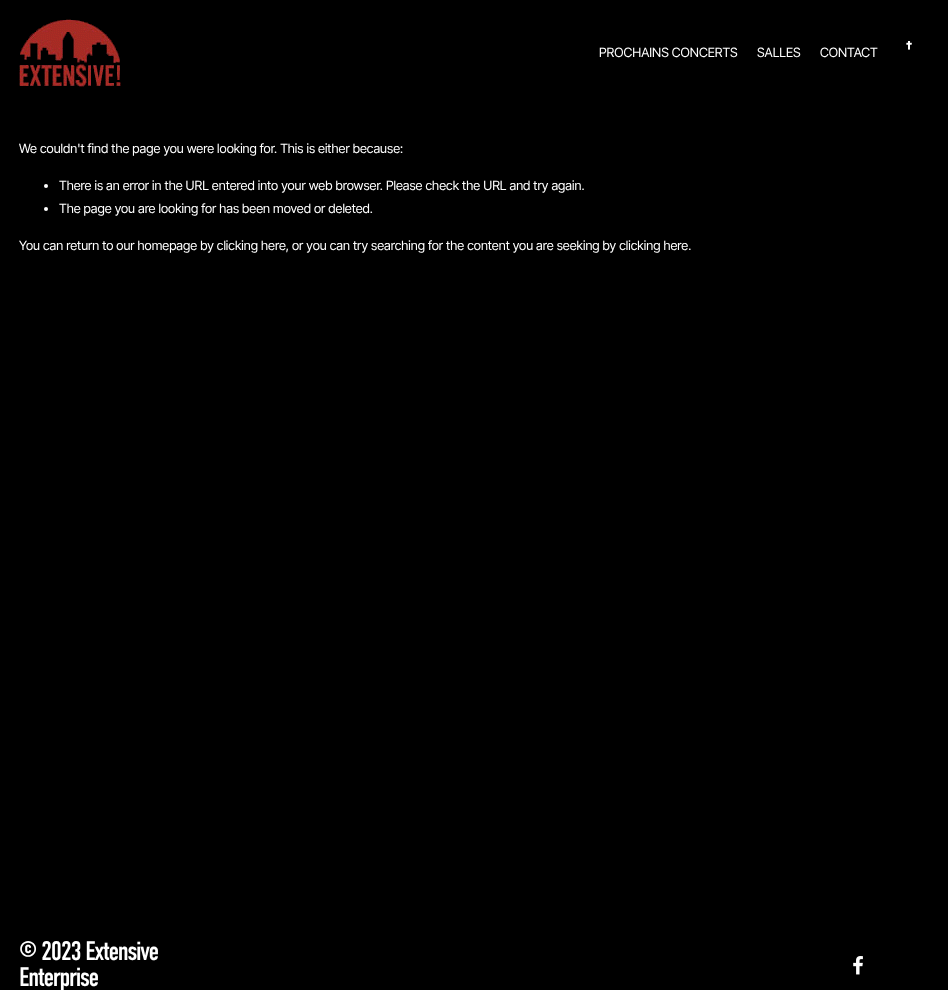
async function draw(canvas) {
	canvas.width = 948;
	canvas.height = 990;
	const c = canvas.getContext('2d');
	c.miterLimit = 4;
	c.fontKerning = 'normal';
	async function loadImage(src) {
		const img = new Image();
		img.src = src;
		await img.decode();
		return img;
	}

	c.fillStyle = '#000';
	c.fillRect(0, 0, 948, 990);
	c.drawImage(await loadImage('img1.png'), 906, 41, 6, 9);
	c.drawImage(await loadImage('img2.png'), 19, 19, 102, 68);
	c.font = '12.9px Inter Tight';
	c.fillStyle = '#fff';
	for (const [text, x, y] of [
		['PROCHAINS CONCERTS', 599, 57],
		['SALLES', 757, 57],
		['CONTACT', 820, 57],
		['We couldn\'t find the page you were looking for. This is either because:', 19, 153],
	]) {
		c.fillText(text, x, y);
	}
	c.beginPath();
	c.arc(46, 186, 2, 0, 2 * Math.PI);
	c.fill();
	c.fillText('There is an error in the URL entered into your web browser. Please check the URL and try again.', 59, 190);
	c.beginPath();
	c.arc(46, 209, 2, 0, 2 * Math.PI);
	c.fill();
	c.fillText('The page you are looking for has been moved or deleted.', 59, 213);
	c.fillText('You can return to our homepage by clicking here, or you can try searching for the content you are seeking by clicking here.', 19, 250);
	c.letterSpacing = '-1.3px';
	c.font = '26.75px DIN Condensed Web';
	c.fillText('© 2023 Extensive', 19, 960);
	c.fillText('Enterprise', 19, 986);
	c.drawImage(await loadImage('img3.png'), 853, 956, 10, 19);
}

draw(document.querySelector('canvas'));
